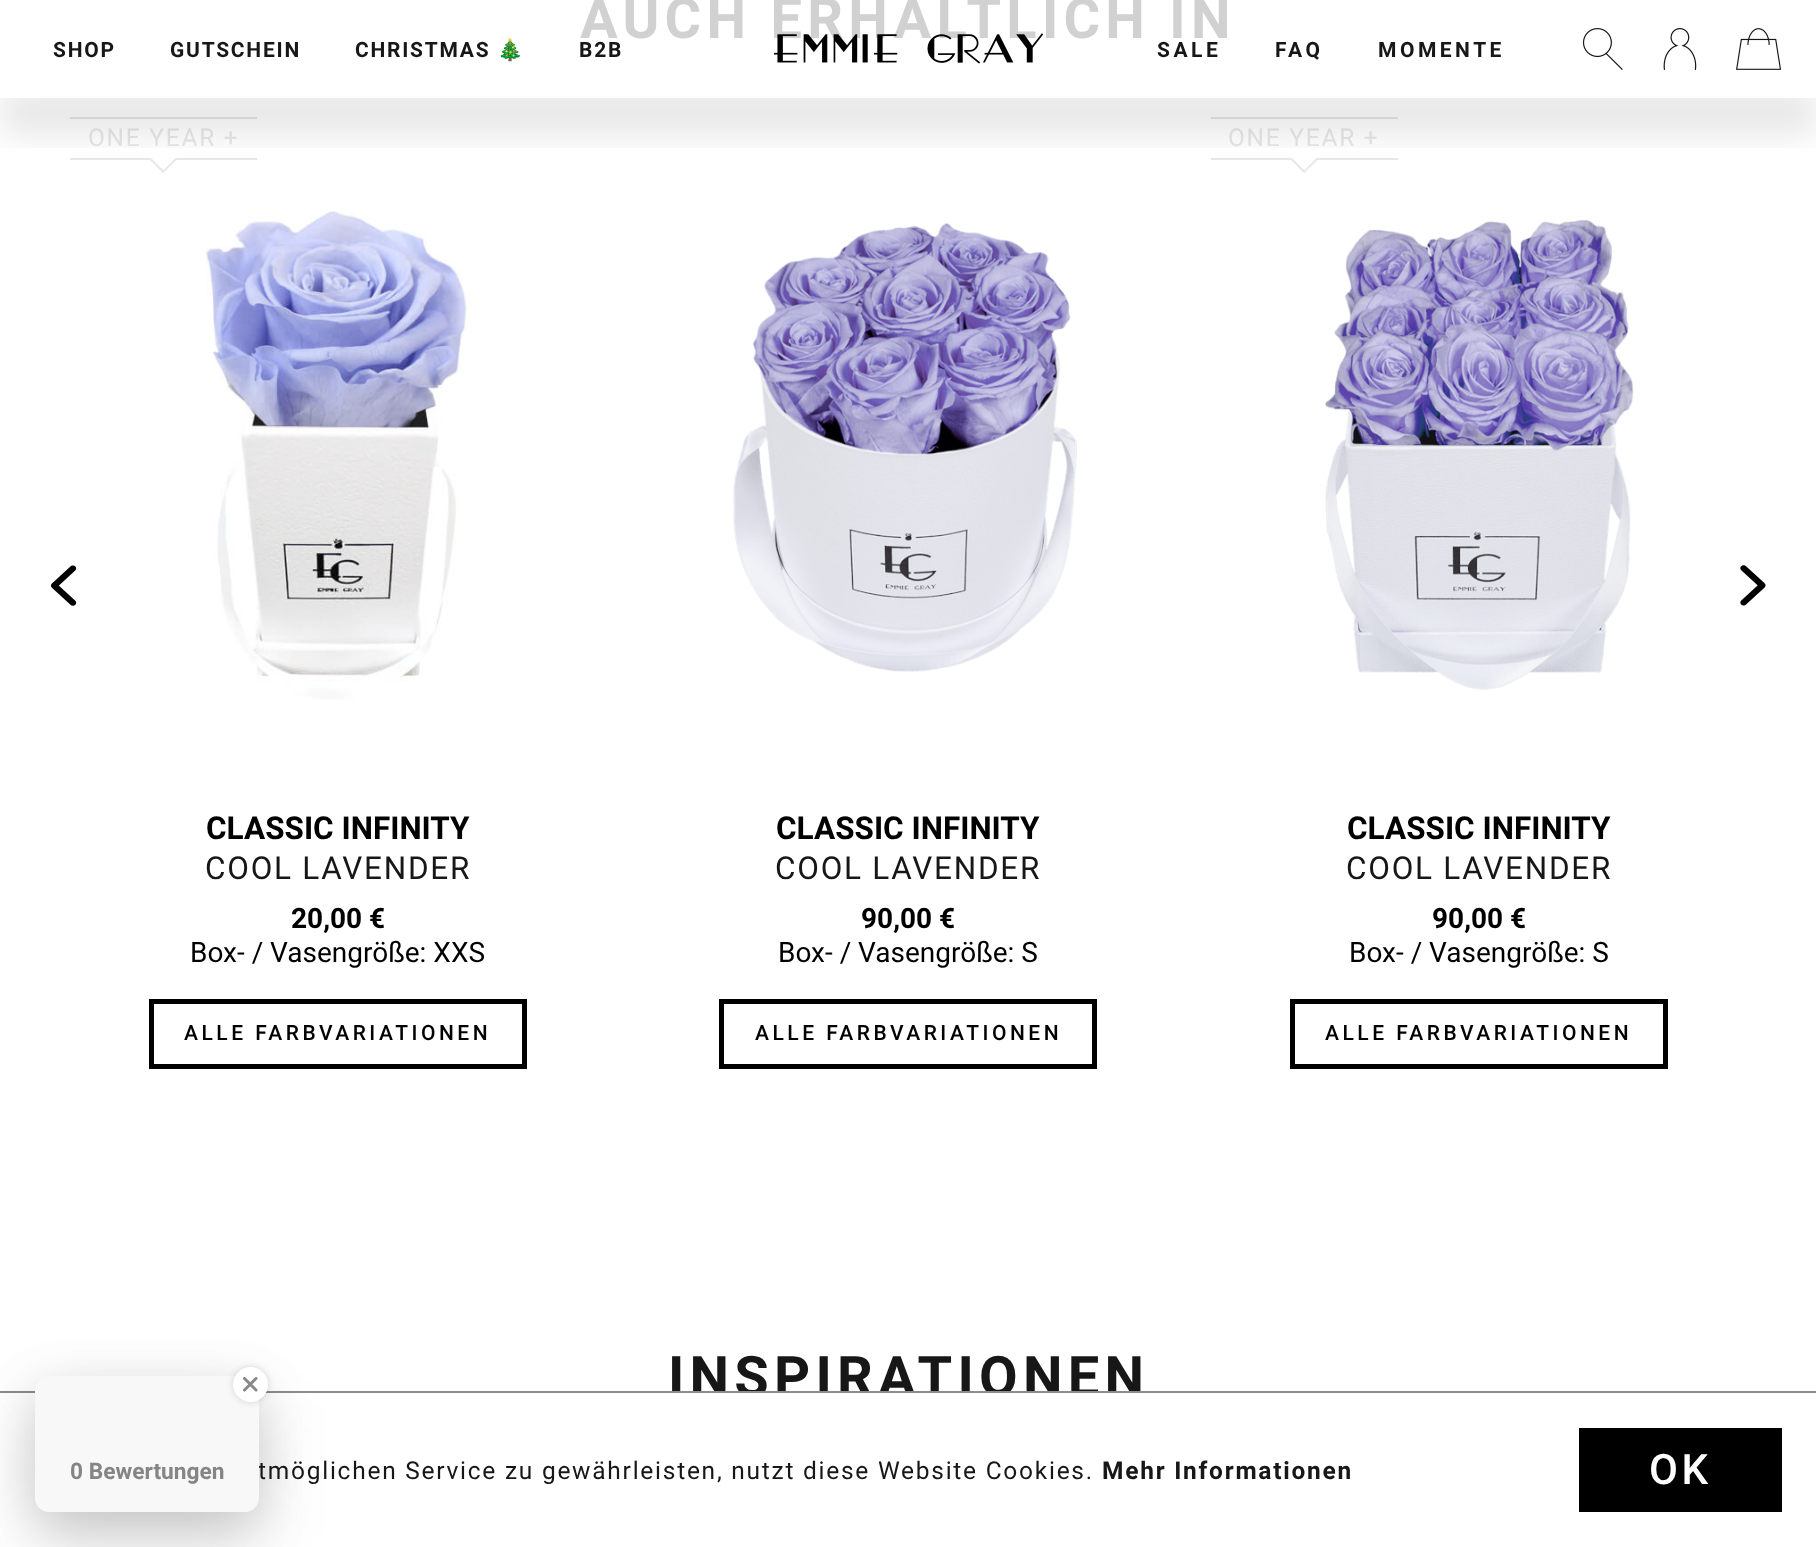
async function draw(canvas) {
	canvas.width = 1816;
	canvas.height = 1547;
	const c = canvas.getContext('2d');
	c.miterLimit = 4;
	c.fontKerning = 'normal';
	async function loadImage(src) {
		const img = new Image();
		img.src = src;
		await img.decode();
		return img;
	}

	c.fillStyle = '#fff';
	c.fillRect(0, 0, 1816, 1547);
	c.letterSpacing = '5.25px';
	c.font = 'bold 56px Roboto';
	c.fillStyle = '#d1d1d1';
	c.fillText('AUCH ERHÄLTLICH IN', 580, 38);
	c.drawImage(await loadImage('img1.png'), 51, 565, 26, 41);
	c.fillStyle = '#e7e7e7';
	c.fillRect(70, 117, 187, 2);
	c.fillRect(70, 158, 187, 2);
	c.letterSpacing = '1.75px';
	c.font = '24.5px Roboto';
	c.fillText('ONE YEAR +', 88, 146);
	c.fillStyle = '#fff';
	c.beginPath();
	c.moveTo(163, 145.5);
	c.lineTo(177, 159.5);
	c.lineTo(163, 173);
	c.lineTo(149.5, 159.5);
	c.closePath();
	c.fill();
	c.fillStyle = '#e7e7e7';
	c.beginPath();
	c.moveTo(175.5, 158);
	c.lineTo(177, 159.5);
	c.lineTo(163, 173);
	c.lineTo(162, 171.5);
	c.closePath();
	c.fill();
	c.beginPath();
	c.moveTo(151, 158);
	c.lineTo(164.5, 171.5);
	c.lineTo(163, 173);
	c.lineTo(149.5, 159.5);
	c.closePath();
	c.fill();
	c.drawImage(await loadImage('img2.png'), 205, 211, 265, 489);
	c.letterSpacing = '0px';
	c.font = 'bold 31.5px Roboto';
	c.fillStyle = '#000';
	c.fillText('CLASSIC INFINITY', 206, 839);
	c.letterSpacing = '1.75px';
	c.font = '31.5px Roboto';
	c.fillStyle = '#171717';
	c.fillText('COOL LAVENDER', 205, 879);
	c.letterSpacing = '0px';
	c.font = 'bold 28px Roboto';
	c.fillStyle = '#000';
	c.fillText('20,00 €', 291, 928);
	c.font = '28px Roboto';
	c.fillText('Box- / Vasengröße: XXS', 190, 962);
	c.strokeStyle = '#000';
	c.lineWidth = 5;
	c.strokeRect(151.5, 1001.5, 373, 65);
	c.letterSpacing = '3.5px';
	c.font = '500 21px Roboto';
	c.fillText('ALLE FARBVARIATIONEN', 184, 1040);
	c.drawImage(await loadImage('img3.png'), 733, 223, 344, 449);
	c.letterSpacing = '0px';
	c.font = 'bold 31.5px Roboto';
	c.fillText('CLASSIC INFINITY', 776, 839);
	c.letterSpacing = '1.75px';
	c.font = '31.5px Roboto';
	c.fillStyle = '#171717';
	c.fillText('COOL LAVENDER', 775, 879);
	c.letterSpacing = '0px';
	c.font = 'bold 28px Roboto';
	c.fillStyle = '#000';
	c.fillText('90,00 €', 861, 928);
	c.font = '28px Roboto';
	c.fillText('Box- / Vasengröße: S', 778, 962);
	c.strokeRect(721.5, 1001.5, 373, 65);
	c.letterSpacing = '3.5px';
	c.font = '500 21px Roboto';
	c.fillText('ALLE FARBVARIATIONEN', 755, 1040);
	c.fillStyle = '#e7e7e7';
	c.fillRect(1211, 117, 187, 2);
	c.fillRect(1211, 158, 187, 2);
	c.letterSpacing = '1.75px';
	c.font = '24.5px Roboto';
	c.fillText('ONE YEAR +', 1228, 146);
	c.fillStyle = '#fff';
	c.beginPath();
	c.moveTo(1304, 145.5);
	c.lineTo(1318, 159.5);
	c.lineTo(1304, 173);
	c.lineTo(1290.5, 159.5);
	c.closePath();
	c.fill();
	c.fillStyle = '#e7e7e7';
	c.beginPath();
	c.moveTo(1316.5, 158);
	c.lineTo(1318, 159.5);
	c.lineTo(1304, 173);
	c.lineTo(1303, 171.5);
	c.closePath();
	c.fill();
	c.beginPath();
	c.moveTo(1292, 158);
	c.lineTo(1305.5, 171.5);
	c.lineTo(1304, 173);
	c.lineTo(1290.5, 159.5);
	c.closePath();
	c.fill();
	c.drawImage(await loadImage('img4.png'), 1325, 220, 309, 470);
	c.letterSpacing = '0px';
	c.font = 'bold 31.5px Roboto';
	c.fillStyle = '#000';
	c.fillText('CLASSIC INFINITY', 1347, 839);
	c.letterSpacing = '1.75px';
	c.font = '31.5px Roboto';
	c.fillStyle = '#171717';
	c.fillText('COOL LAVENDER', 1346, 879);
	c.letterSpacing = '0px';
	c.font = 'bold 28px Roboto';
	c.fillStyle = '#000';
	c.fillText('90,00 €', 1432, 928);
	c.font = '28px Roboto';
	c.fillText('Box- / Vasengröße: S', 1349, 962);
	c.strokeRect(1292.5, 1001.5, 373, 65);
	c.letterSpacing = '3.5px';
	c.font = '500 21px Roboto';
	c.fillText('ALLE FARBVARIATIONEN', 1325, 1040);
	c.drawImage(await loadImage('img5.png'), 1740, 565, 26, 41);
	c.letterSpacing = '5.25px';
	c.font = 'bold 56px Roboto';
	c.fillStyle = '#171717';
	c.fillText('INSPIRATIONEN', 668, 1396);
	c.drawImage(await loadImage('img6.png'), 774, 33, 270, 31);
	c.drawImage(await loadImage('img7.png'), 1582, 28, 41, 42);
	c.drawImage(await loadImage('img8.png'), 1663, 28, 34, 42);
	c.drawImage(await loadImage('img9.png'), 1736, 28, 46, 42);
	c.save();
	c.beginPath();
	c.rect(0, 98, 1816, 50);
	c.clip();
	c.fillStyle = '#0000001a';
	c.filter = 'blur(17.5px)';
	c.beginPath();
	c.rect(0, 89, 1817, 44);
	c.fill();
	c.filter = 'none';
	c.restore();
	c.letterSpacing = '1.75px';
	c.font = 'bold 21px Roboto';
	for (const [text, x, y] of [
		['SHOP', 53, 57],
		['GUTSCHEIN', 170, 57],
		['CHRISTMAS', 355, 57],
	]) {
		c.fillText(text, x, y);
	}
	c.font = 'bold 21px Noto Color Emoji';
	c.fillText('🎄', 497, 57);
	c.font = 'bold 21px Roboto';
	c.fillText('B2B', 579, 57);
	c.letterSpacing = '3.5px';
	for (const [text, x, y] of [
		['SALE', 1157, 57],
		['FAQ', 1275, 57],
		['MOMENTE', 1378, 57],
	]) {
		c.fillText(text, x, y);
	}
	c.fillStyle = '#8d8d8d';
	c.fillRect(0, 1391, 1816, 2);
	c.fillStyle = '#00000026';
	c.filter = 'blur(26px)';
	c.beginPath();
	c.roundRect(35, 1393, 224, 137, 14);
	c.fill();
	c.filter = 'none';
	c.fillStyle = '#0000001a';
	c.filter = 'blur(35px)';
	c.beginPath();
	c.roundRect(35, 1402, 224, 136, 14);
	c.fill();
	c.filter = 'none';
	c.letterSpacing = '1.75px';
	c.font = '24.5px Roboto';
	c.fillStyle = '#171717';
	c.fillText('tmöglichen Service zu gewährleisten, nutzt diese Website Cookies.', 258, 1479);
	c.fillStyle = '#f8f8f8';
	c.beginPath();
	c.roundRect(35, 1376, 224, 136, 14);
	c.fill();
	c.fillStyle = '#00000026';
	c.filter = 'blur(3.5px)';
	c.beginPath();
	c.roundRect(233, 1367, 35, 35, 17.5);
	c.fill();
	c.filter = 'none';
	c.fillStyle = '#fff';
	c.beginPath();
	c.arc(250.5, 1384.5, 17.5, 0, 2 * Math.PI);
	c.fill();
	c.drawImage(await loadImage('img10.png'), 243, 1377, 15, 15);
	c.letterSpacing = '0px';
	c.font = 'bold 22.75px Roboto';
	c.fillStyle = '#858585';
	c.fillText('0 Bewertungen', 70, 1479);
	c.fillStyle = '#fff';
	c.fillRect(671, 1393, 470, 4);
	c.letterSpacing = '1.75px';
	c.font = 'bold 24.5px Roboto';
	c.fillStyle = '#171717';
	c.fillText('Mehr Informationen', 1102, 1479);
	c.fillStyle = '#000';
	c.fillRect(1579, 1428, 203, 84);
	c.letterSpacing = '3.5px';
	c.font = '500 42px Roboto';
	c.fillStyle = '#fff';
	c.fillText('OK', 1649, 1484);
}

draw(document.querySelector('canvas'));
